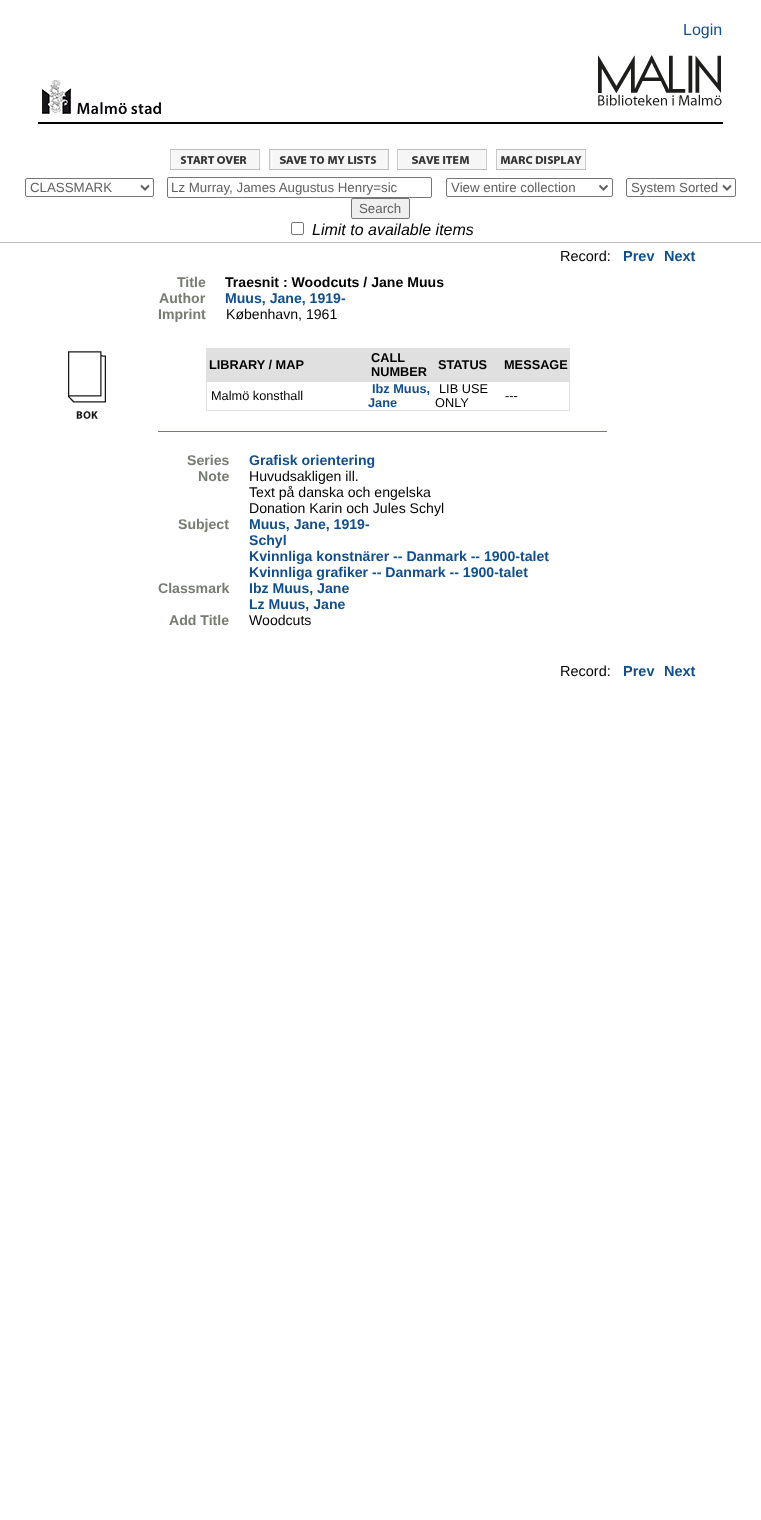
async function draw(canvas) {
	canvas.width = 761;
	canvas.height = 1520;
	const c = canvas.getContext('2d');
	c.miterLimit = 4;
	c.fontKerning = 'normal';
	async function loadImage(src) {
		const img = new Image();
		img.src = src;
		await img.decode();
		return img;
	}

	c.fillStyle = '#fff';
	c.fillRect(0, 0, 761, 1520);
	c.font = '16px Liberation Sans';
	c.fillStyle = '#114f8c';
	c.fillText('Login', 683, 35);
	c.drawImage(await loadImage('img1.png'), 42, 80, 119, 34);
	c.drawImage(await loadImage('img2.png'), 598, 55, 124, 51);
	c.fillStyle = '#000';
	c.fillRect(38, 122, 685, 2);
	c.drawImage(await loadImage('img3.png'), 170, 149, 90, 21);
	c.drawImage(await loadImage('img4.png'), 269, 149, 120, 21);
	c.drawImage(await loadImage('img5.png'), 397, 149, 90, 21);
	c.drawImage(await loadImage('img6.png'), 496, 149, 90, 21);
	c.fillStyle = '#bdbdbd';
	c.fillRect(0, 242, 761, 1);
	c.beginPath();
	c.roundRect(25.5, 178.5, 128, 18, 1.5);
	c.strokeStyle = '#767676';
	c.stroke();
	c.beginPath();
	c.moveTo(141, 185.5);
	c.lineTo(145, 189.5);
	c.lineTo(149, 185.5);
	c.strokeStyle = '#616161';
	c.lineWidth = 2;
	c.stroke();
	c.font = '13.3px Liberation Sans';
	c.fillStyle = '#616161';
	c.fillText('CLASSMARK', 30, 192);
	c.beginPath();
	c.roundRect(167.5, 177.5, 264, 20, 1.5);
	c.strokeStyle = '#767676';
	c.lineWidth = 1;
	c.stroke();
	c.fillText('Lz Murray, James Augustus Henry=sic', 171, 192);
	c.beginPath();
	c.roundRect(446.5, 178.5, 166, 18, 1.5);
	c.stroke();
	c.beginPath();
	c.moveTo(599.5, 185.5);
	c.lineTo(603.5, 189.5);
	c.lineTo(607.5, 185.5);
	c.strokeStyle = '#616161';
	c.lineWidth = 2;
	c.stroke();
	c.fillText('View entire collection', 451, 192);
	c.beginPath();
	c.roundRect(626.5, 178.5, 109, 18, 1.5);
	c.strokeStyle = '#767676';
	c.lineWidth = 1;
	c.stroke();
	c.beginPath();
	c.moveTo(723, 185.5);
	c.lineTo(727, 189.5);
	c.lineTo(731, 185.5);
	c.strokeStyle = '#616161';
	c.lineWidth = 2;
	c.stroke();
	c.fillText('System Sorted', 631, 192);
	c.fillStyle = '#efefef';
	c.beginPath();
	c.roundRect(351.5, 198.5, 58, 20, 1.5);
	c.fill();
	c.strokeStyle = '#767676';
	c.lineWidth = 1;
	c.stroke();
	c.fillStyle = '#616161';
	c.fillText('Search', 359, 213);
	c.beginPath();
	c.roundRect(291.5, 222.5, 12, 12, 1.5);
	c.stroke();
	c.font = 'italic 16px Liberation Sans';
	c.fillStyle = '#000';
	c.fillText('Limit to available items', 312, 235);
	c.font = '14.5px Liberation Sans';
	c.fillText('Record:', 560, 261);
	c.font = 'bold 14.5px Liberation Sans';
	c.fillStyle = '#114f8c';
	c.fillText('Prev', 623, 261);
	c.fillText('Next', 664, 261);
	c.drawImage(await loadImage('img7.png'), 68, 351, 38, 68);
	c.font = 'bold 14.1px Liberation Sans';
	c.fillStyle = '#767c70';
	c.fillText('Title', 177, 287);
	c.fillStyle = '#000';
	c.fillText('Traesnit : Woodcuts / Jane Muus', 225, 287);
	c.fillStyle = '#767c70';
	c.fillText('Author', 159, 303);
	c.fillStyle = '#114f8c';
	c.fillText('Muus, Jane, 1919-', 225, 303);
	c.fillStyle = '#767c70';
	c.fillText('Imprint', 158, 319);
	c.font = '14.1px Liberation Sans';
	c.fillStyle = '#000';
	c.fillText('København, 1961', 226, 319);
	for (const [x, y, w, h, color] of [
		[207, 349, 363, 32, '#e0e0e0'],
		[206, 348, 364, 1, '#e0e0e0'],
		[206, 381, 364, 1, '#e0e0e0'],
		[569, 381, 1, 30, '#e0e0e0'],
		[206, 410, 364, 1, '#e0e0e0'],
		[206, 381, 1, 30, '#e0e0e0'],
		[206, 348, 1, 34, '#e0e0e0'],
	]) {
		c.fillStyle = color;
		c.fillRect(x, y, w, h);
	}
	c.font = 'bold 12.75px Liberation Sans';
	c.fillStyle = '#000';
	for (const [text, x, y] of [
		['LIBRARY / MAP', 209, 369],
		['CALL', 371, 362],
		['NUMBER', 371, 376],
		['STATUS', 438, 369],
		['MESSAGE', 504, 369],
	]) {
		c.fillText(text, x, y);
	}
	c.font = '12.75px Liberation Sans';
	c.fillText('Malmö konsthall', 211, 400);
	c.font = 'bold 12.75px Liberation Sans';
	c.fillStyle = '#114f8c';
	c.fillText('Ibz Muus,', 372, 393);
	c.fillText('Jane', 368, 407);
	c.font = '12.75px Liberation Sans';
	c.fillStyle = '#000';
	for (const [text, x, y] of [
		['LIB USE', 439, 393],
		['ONLY', 435, 407],
		['---', 505, 400],
	]) {
		c.fillText(text, x, y);
	}
	c.fillStyle = '#767c70';
	c.fillRect(158, 431, 449, 1);
	c.font = 'bold 14.1px Liberation Sans';
	c.fillText('Series', 187, 465);
	c.fillStyle = '#114f8c';
	c.fillText('Grafisk orientering', 249, 465);
	c.fillStyle = '#767c70';
	c.fillText('Note', 198, 481);
	c.font = '14.1px Liberation Sans';
	c.fillStyle = '#000';
	for (const [text, x, y] of [
		['Huvudsakligen ill.', 249, 481],
		['Text på danska och engelska', 249, 497],
		['Donation Karin och Jules Schyl', 249, 513],
	]) {
		c.fillText(text, x, y);
	}
	c.font = 'bold 14.1px Liberation Sans';
	c.fillStyle = '#767c70';
	c.fillText('Subject', 178, 529);
	c.fillStyle = '#114f8c';
	for (const [text, x, y] of [
		['Muus, Jane, 1919-', 249, 529],
		['Schyl', 249, 545],
		['Kvinnliga konstnärer -- Danmark -- 1900-talet', 249, 561],
		['Kvinnliga grafiker -- Danmark -- 1900-talet', 249, 577],
	]) {
		c.fillText(text, x, y);
	}
	c.fillStyle = '#767c70';
	c.fillText('Classmark', 158, 593);
	c.fillStyle = '#114f8c';
	c.fillText('Ibz Muus, Jane', 249, 593);
	c.fillText('Lz Muus, Jane', 249, 609);
	c.fillStyle = '#767c70';
	c.fillText('Add Title', 169, 625);
	c.font = '14.1px Liberation Sans';
	c.fillStyle = '#000';
	c.fillText('Woodcuts', 249, 625);
	c.font = '14.5px Liberation Sans';
	c.fillText('Record:', 560, 676);
	c.font = 'bold 14.5px Liberation Sans';
	c.fillStyle = '#114f8c';
	c.fillText('Prev', 623, 676);
	c.fillText('Next', 664, 676);
}

draw(document.querySelector('canvas'));
